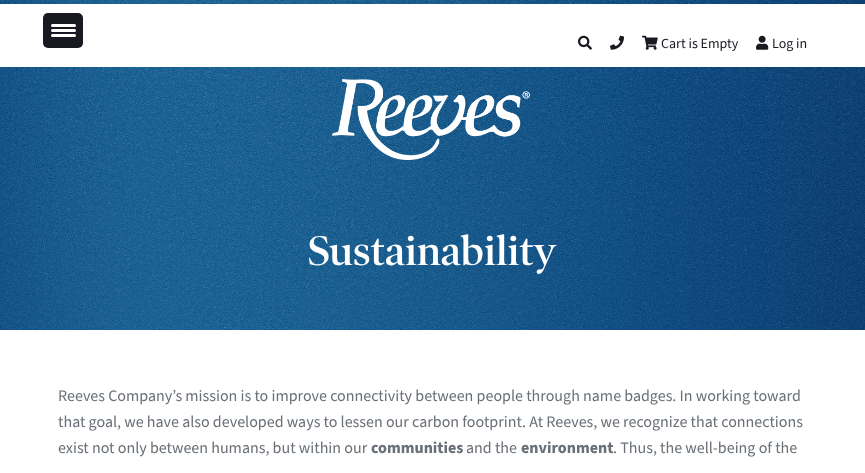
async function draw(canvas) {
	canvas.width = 865;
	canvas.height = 473;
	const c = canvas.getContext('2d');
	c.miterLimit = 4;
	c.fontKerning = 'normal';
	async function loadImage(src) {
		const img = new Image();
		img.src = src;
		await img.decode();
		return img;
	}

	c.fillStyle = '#fff';
	c.fillRect(0, 0, 865, 473);
	c.drawImage(await loadImage('img5.png'), 0, 0, 865, 330);
	c.fillRect(0, 4, 865, 63);
	c.fillStyle = '#181921';
	c.beginPath();
	c.roundRect(43, 13, 40, 35, 5);
	c.fill();
	c.fillStyle = '#fff';
	c.beginPath();
	c.roundRect(51, 29, 25, 3, 1.5);
	c.fill();
	c.beginPath();
	c.roundRect(51, 24, 25, 3, 1.5);
	c.fill();
	c.beginPath();
	c.roundRect(51, 34, 25, 3, 1.5);
	c.fill();
	c.drawImage(await loadImage('img1.png'), 578, 35, 14, 15);
	c.drawImage(await loadImage('img2.png'), 610, 35, 14, 15);
	c.drawImage(await loadImage('img3.png'), 642, 35, 16, 15);
	c.font = '14px Source Sans Pro';
	c.fillStyle = '#181921';
	c.fillText('Cart is Empty', 661, 48);
	c.drawImage(await loadImage('img4.png'), 756, 35, 13, 15);
	c.fillText('Log in', 772, 48);
	c.drawImage(await loadImage('img6.png'), 332, 79, 198, 81);
	c.font = '600 42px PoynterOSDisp';
	c.fillStyle = '#fff';
	c.fillText('Sustainability', 308, 265);
	c.font = '16px Source Sans Pro';
	c.fillStyle = '#6a7077';
	for (const [text, x, y] of [
		['Reeves Company’s mission is to improve connectivity between people through name badges. In working toward', 58, 401],
		['that goal, we have also developed ways to lessen our carbon footprint. At Reeves, we recognize that connections', 58, 427],
		['exist not only between humans, but within our', 58, 453],
	]) {
		c.fillText(text, x, y);
	}
	c.font = 'bold 16px Source Sans Pro';
	c.fillText('communities', 371, 453);
	c.font = '16px Source Sans Pro';
	c.fillText('and the', 466, 453);
	c.font = 'bold 16px Source Sans Pro';
	c.fillText('environment', 521, 453);
	c.font = '16px Source Sans Pro';
	c.fillText('. Thus, the well-being of the', 613, 453);
}

draw(document.querySelector('canvas'));
